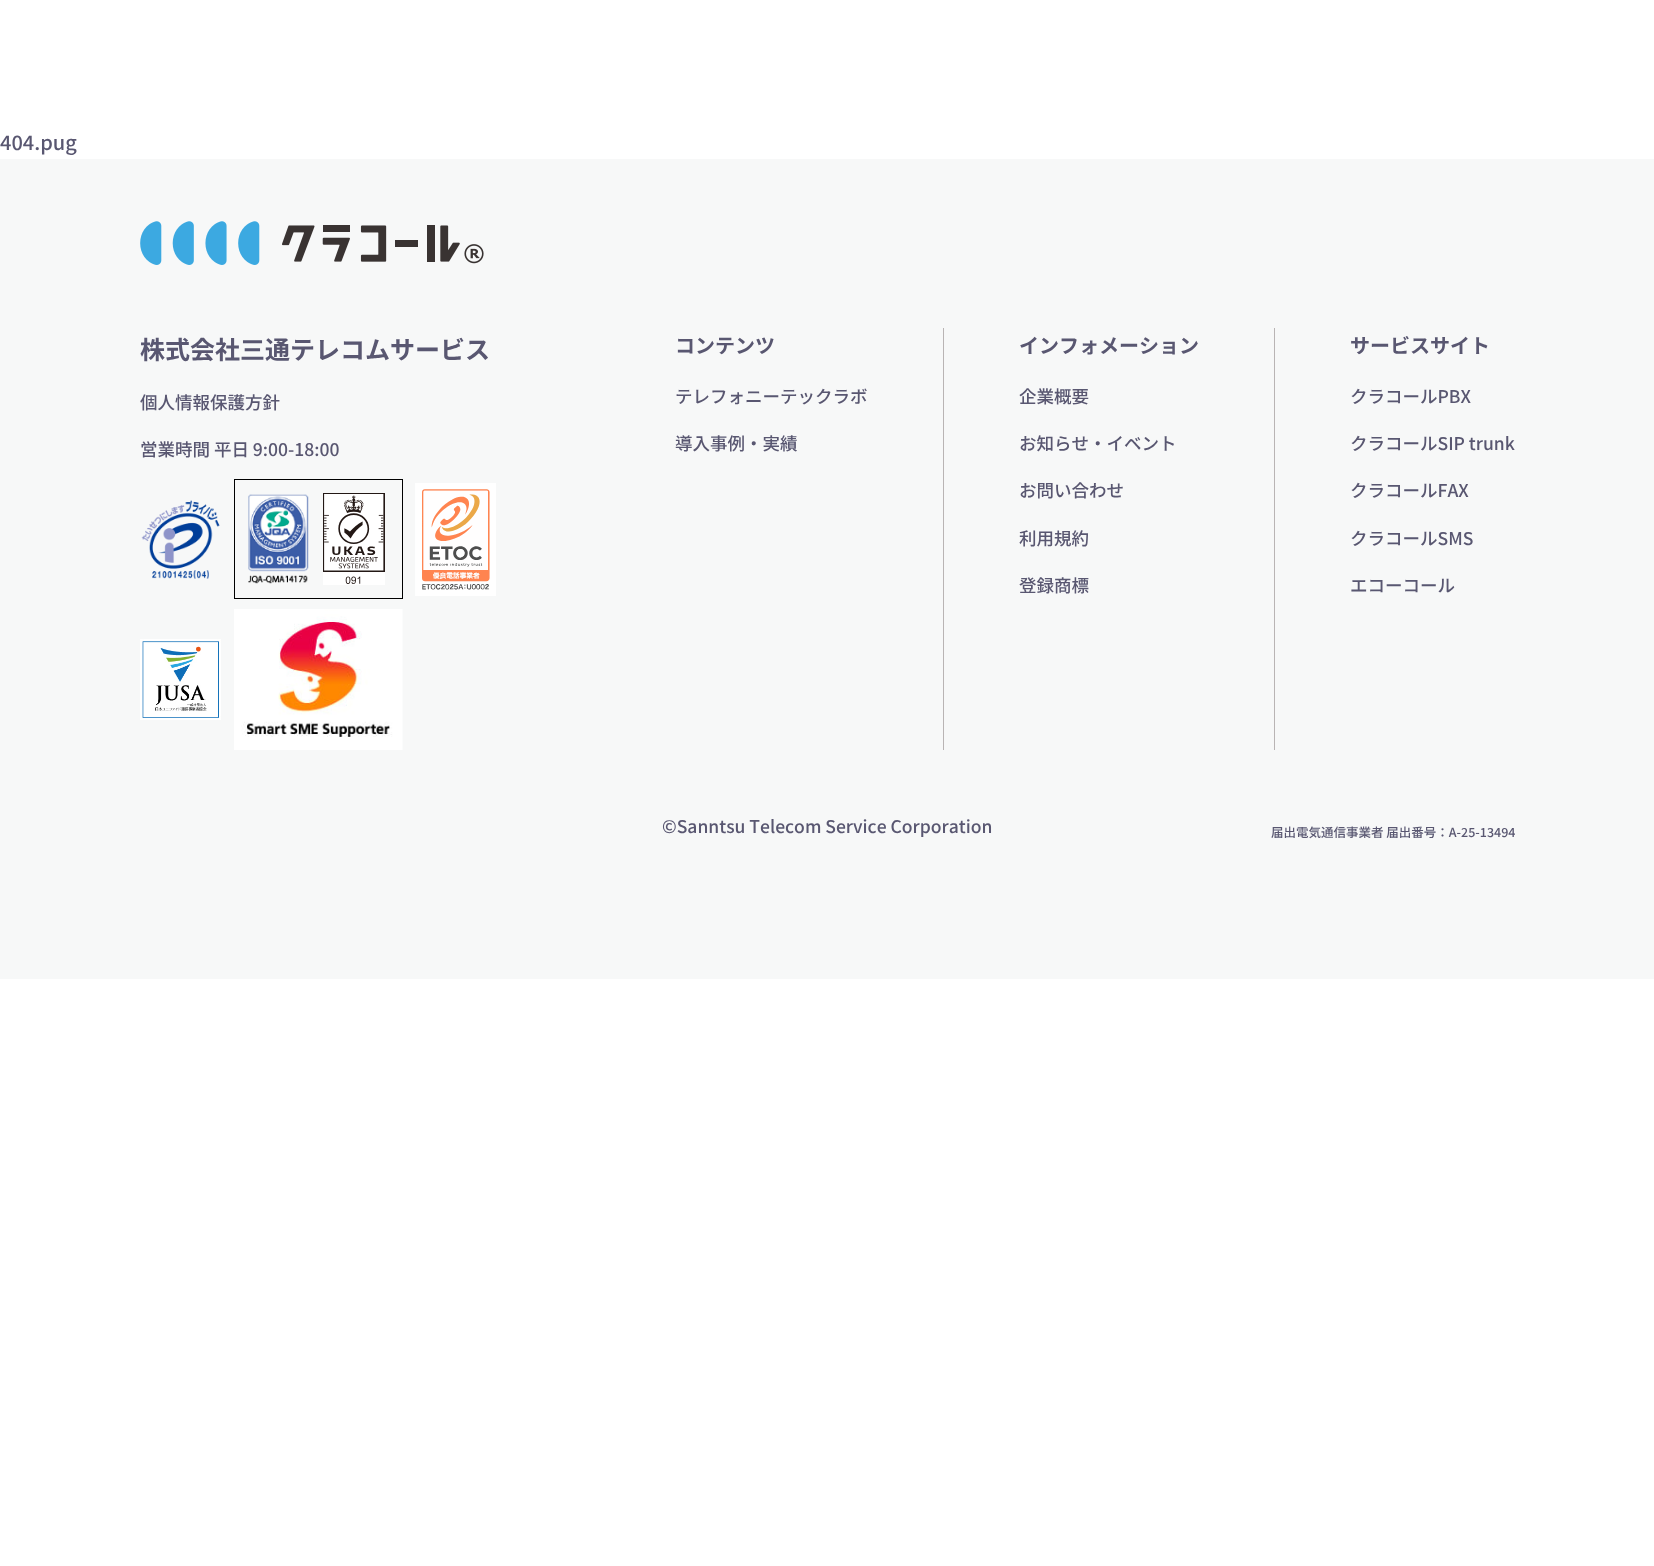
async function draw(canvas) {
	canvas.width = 1654;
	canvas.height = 1566;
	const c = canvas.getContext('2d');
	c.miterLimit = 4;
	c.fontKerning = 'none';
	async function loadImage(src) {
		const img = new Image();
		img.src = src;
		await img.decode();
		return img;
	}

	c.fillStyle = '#fff';
	c.fillRect(0, 0, 1654, 1566);
	c.font = '500 20px Noto Sans JP';
	c.fillStyle = '#595771';
	c.fillText('404.pug', 0, 150);
	c.fillStyle = '#f7f8f8';
	c.fillRect(0, 159, 1654, 820);
	c.drawImage(await loadImage('img1.png'), 140, 221, 344, 44);
	c.font = 'bold 25px Noto Sans JP';
	c.fillStyle = '#595771';
	c.fillText('株式会社三通テレコムサービス', 140, 359);
	c.font = '500 17.5px Noto Sans JP';
	c.fillText('個人情報保護方針', 140, 409);
	c.fillText('営業時間 平日 9:00-18:00', 140, 456);
	c.drawImage(await loadImage('img2.png'), 141, 500, 79, 79);
	c.strokeStyle = '#000';
	c.strokeRect(234.5, 479.5, 168, 119);
	c.drawImage(await loadImage('img3.png'), 248, 494, 61, 90);
	c.drawImage(await loadImage('img4.png'), 323, 493, 62, 92);
	c.drawImage(await loadImage('img5.png'), 415, 483, 81, 113);
	c.drawImage(await loadImage('img6.png'), 140, 639, 81, 81);
	c.drawImage(await loadImage('img7.png'), 234, 609, 169, 141);
	c.font = 'bold 20px Noto Sans JP';
	c.fillText('コンテンツ', 675, 353);
	c.font = '500 17.5px Noto Sans JP';
	c.fillText('テレフォニーテックラボ', 675, 403);
	c.fillText('導入事例・実績', 675, 450);
	c.fillStyle = '#b9b4b4';
	c.fillRect(943, 328, 1, 422);
	c.font = 'bold 20px Noto Sans JP';
	c.fillStyle = '#595771';
	c.fillText('インフォメーション', 1019, 353);
	c.font = '500 17.5px Noto Sans JP';
	for (const [text, x, y] of [
		['企業概要', 1019, 403],
		['お知らせ・イベント', 1019, 450],
		['お問い合わせ', 1019, 497],
		['利用規約', 1019, 545],
		['登録商標', 1019, 592],
	]) {
		c.fillText(text, x, y);
	}
	c.fillStyle = '#b9b4b4';
	c.fillRect(1274, 328, 1, 422);
	c.font = 'bold 20px Noto Sans JP';
	c.fillStyle = '#595771';
	c.fillText('サービスサイト', 1350, 353);
	c.font = '500 17.5px Noto Sans JP';
	for (const [text, x, y] of [
		['クラコールPBX', 1350, 403],
		['クラコールSIP trunk', 1350, 450],
		['クラコールFAX', 1350, 497],
		['クラコールSMS', 1350, 545],
		['エコーコール', 1350, 592],
		['©Sanntsu Telecom Service Corporation', 662, 833],
	]) {
		c.fillText(text, x, y);
	}
	c.font = '500 12.5px Noto Sans JP';
	c.fillText('届出電気通信事業者 届出番号：A-25-13494', 1271, 837);
}

draw(document.querySelector('canvas'));
